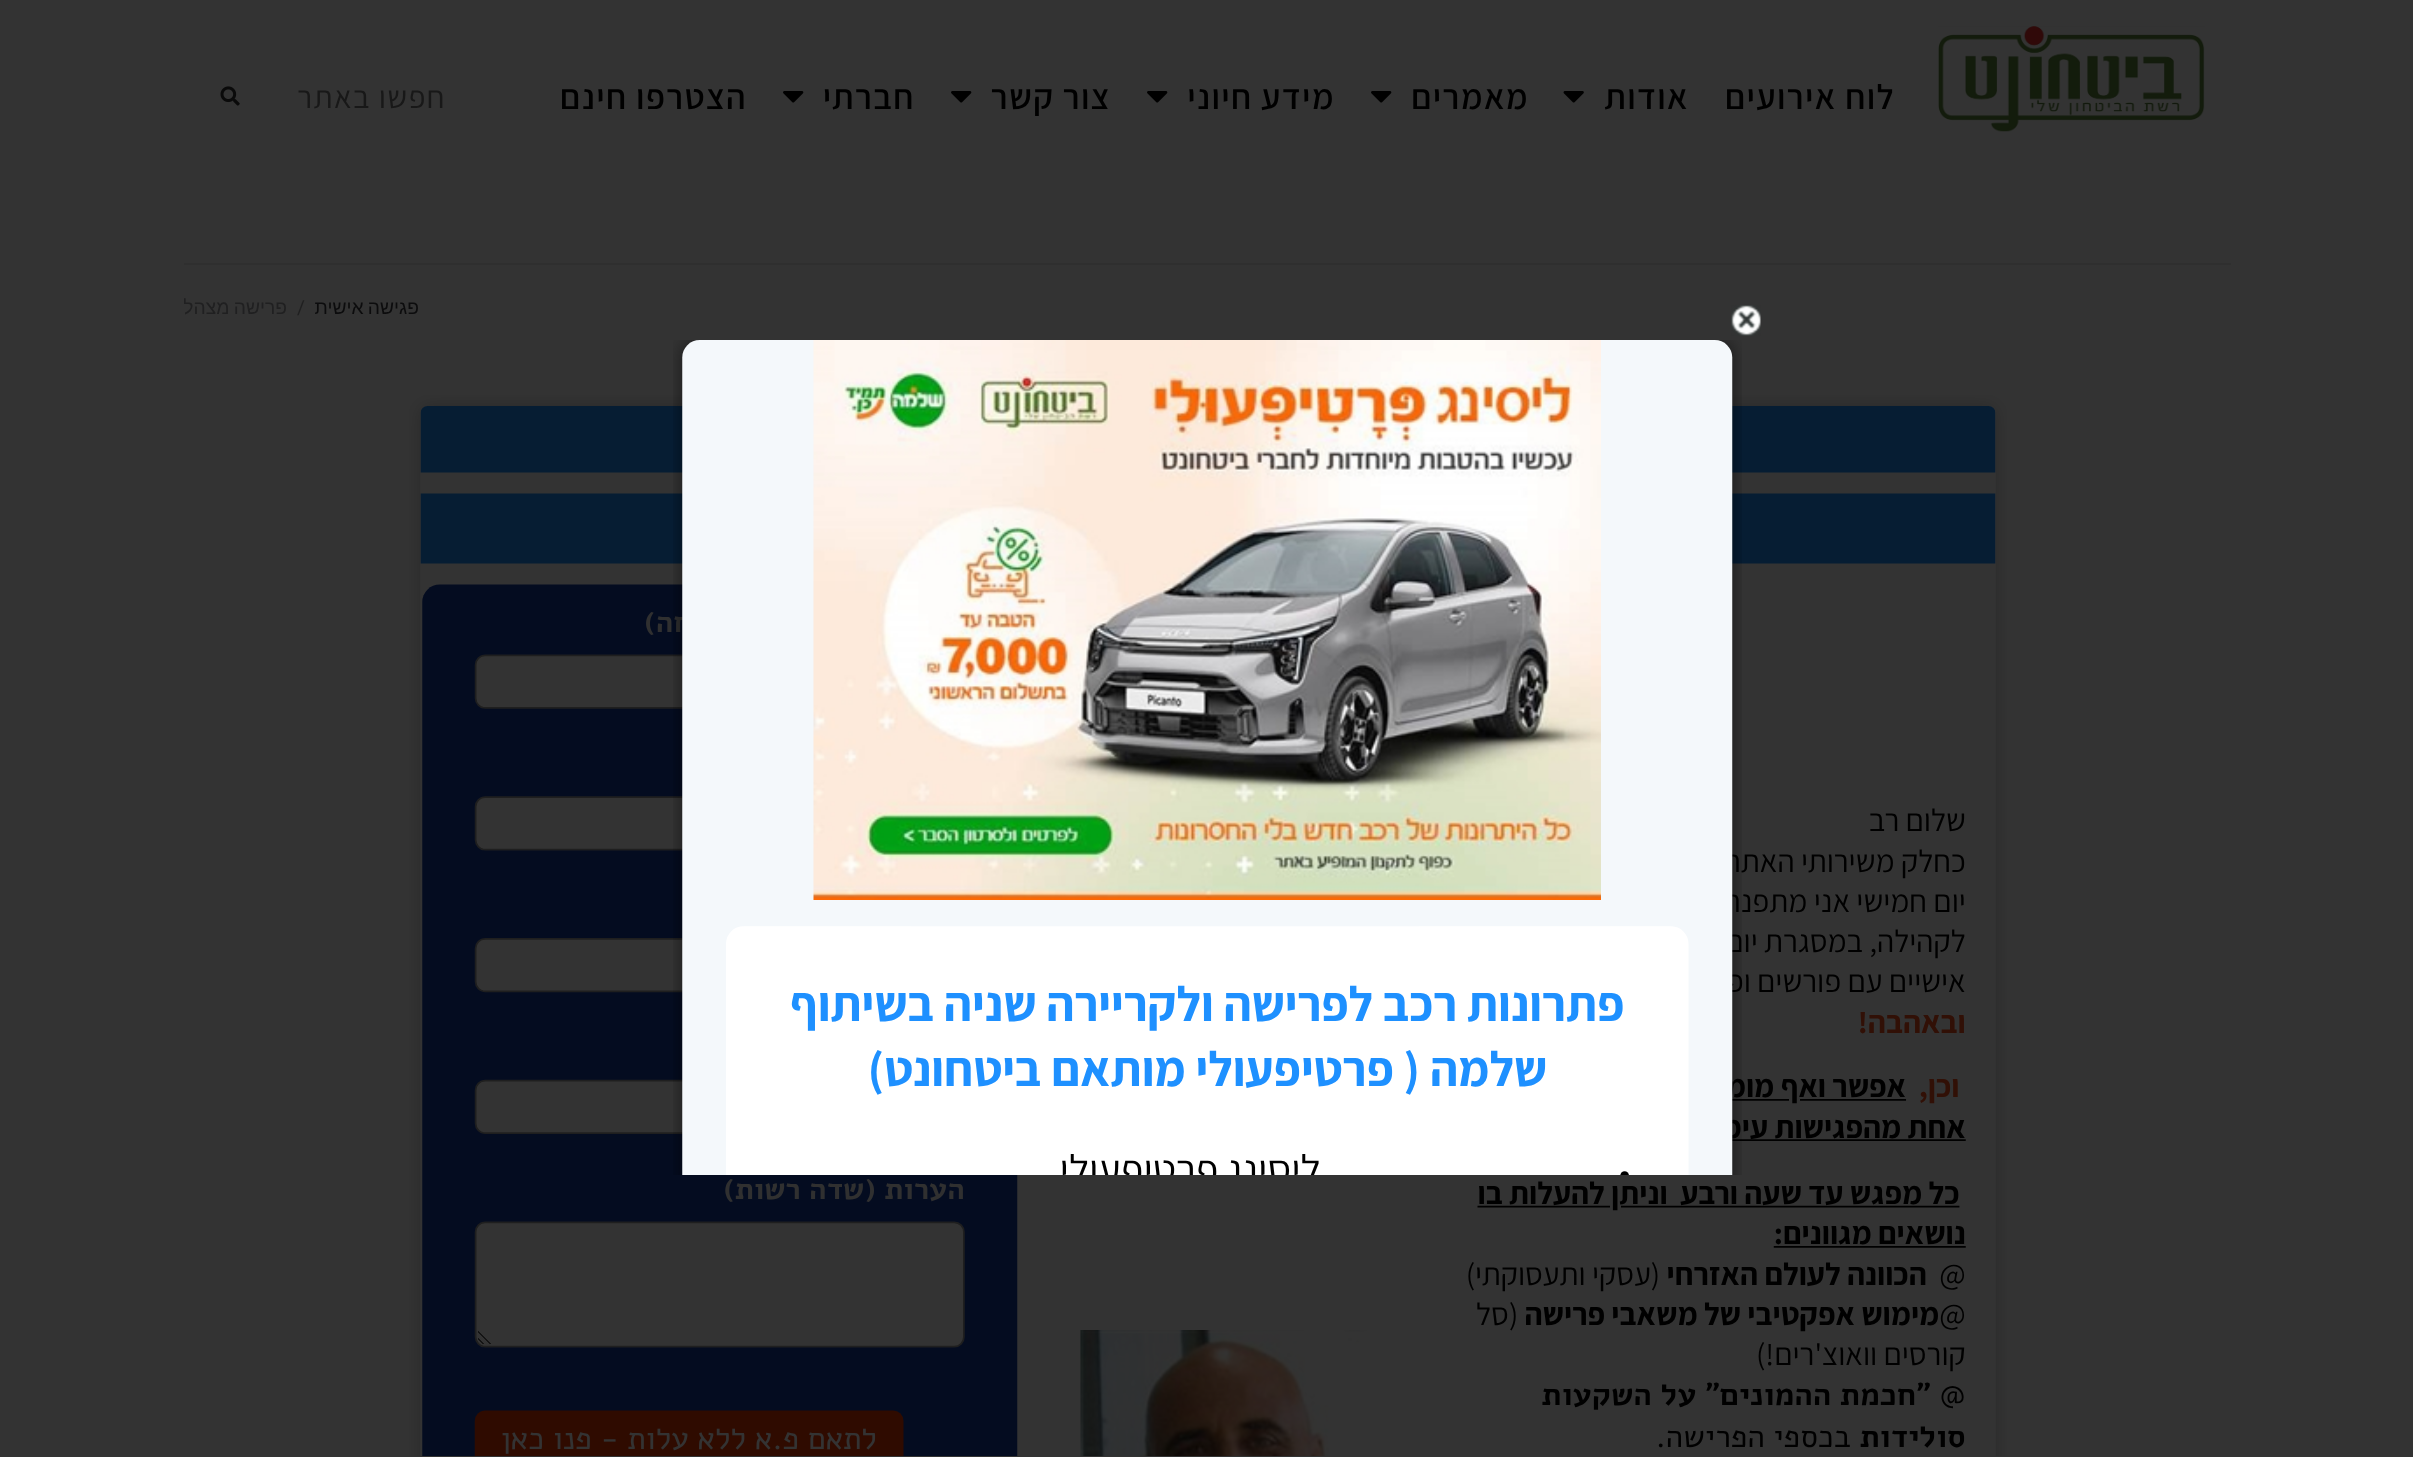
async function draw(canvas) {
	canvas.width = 2413;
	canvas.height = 1457;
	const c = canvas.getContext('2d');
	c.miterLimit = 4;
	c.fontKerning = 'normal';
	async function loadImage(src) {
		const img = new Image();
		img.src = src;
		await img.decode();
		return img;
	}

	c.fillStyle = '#333';
	c.fillRect(0, 0, 2413, 1457);
	c.drawImage(await loadImage('img1.png'), 1938, 26, 267, 106);
	c.letterSpacing = '1.4px';
	c.direction = 'rtl';
	c.font = '600 35px Assistant';
	c.fillStyle = '#000';
	c.fillText('לוח אירועים', 1895, 109);
	c.fillText('אודות', 1689, 109);
	c.drawImage(await loadImage('img2.png'), 1563, 91, 21, 12);
	c.fillText('מאמרים', 1529, 109);
	c.drawImage(await loadImage('img3.png'), 1371, 91, 21, 12);
	c.fillText('מידע חיוני', 1335, 109);
	c.drawImage(await loadImage('img3.png'), 1147, 91, 21, 12);
	c.fillText('צור קשר', 1111, 109);
	c.drawImage(await loadImage('img3.png'), 951, 91, 21, 12);
	c.fillText('חברתי', 915, 109);
	c.drawImage(await loadImage('img3.png'), 783, 91, 21, 12);
	c.fillText('הצטרפו חינם', 747, 109);
	c.font = '31.5px Assistant';
	c.fillStyle = '#181818';
	c.fillText('חפשו באתר', 446, 108);
	c.drawImage(await loadImage('img4.png'), 220, 86, 20, 20);
	c.fillStyle = '#2f2f2f';
	c.fillRect(184, 263, 2047, 2);
	c.letterSpacing = '0px';
	c.wordSpacing = '-1px';
	c.font = '19.25px Liberation Sans';
	c.fillStyle = '#0c0c0d';
	c.fillText('פגישה אישית', 419, 314);
	c.wordSpacing = '0px';
	c.direction = 'ltr';
	c.font = '19.25px Roboto';
	c.fillStyle = '#202021';
	c.fillText('/', 297, 314);
	c.save();
	c.beginPath();
	c.rect(184, 294, 2047, 30);
	c.clip();
	c.wordSpacing = '-1px';
	c.direction = 'rtl';
	c.font = '19.25px Liberation Sans';
	c.fillText('פרישה מצהל', 287, 314);
	c.restore();
	c.drawImage(await loadImage('img5.png'), 409, 395, 1598, 1061);
	c.drawImage(await loadImage('img6.png'), 1731, 305, 30, 31);
	c.drawImage(await loadImage('img7.png'), 673, 340, 1069, 835);
}

draw(document.querySelector('canvas'));
